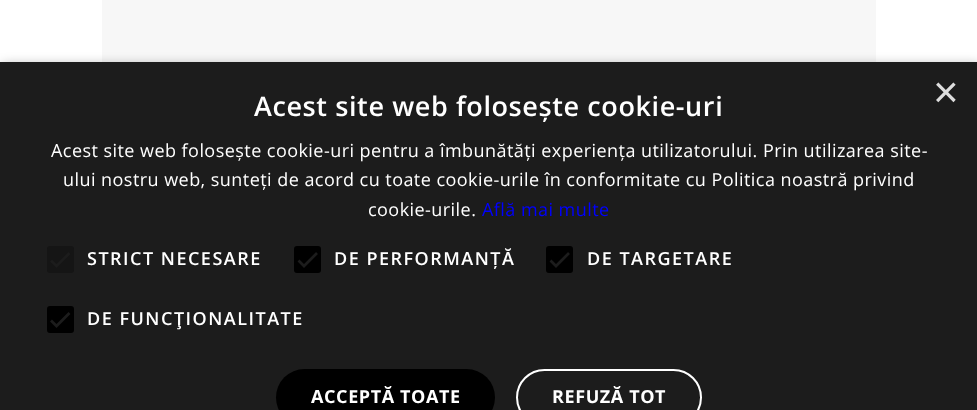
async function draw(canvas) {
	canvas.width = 977;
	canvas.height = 410;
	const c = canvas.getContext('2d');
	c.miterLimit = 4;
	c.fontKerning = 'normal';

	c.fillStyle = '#fff';
	c.fillRect(0, 0, 977, 410);
	c.fillStyle = '#f7f7f7';
	c.fillRect(102, 0, 774, 62);
	c.fillStyle = '#00000059';
	c.filter = 'blur(6px)';
	c.beginPath();
	c.rect(2, 65, 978, 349);
	c.fill();
	c.filter = 'none';
	c.fillStyle = '#1c1c1c';
	c.fillRect(0, 62, 977, 348);
	c.font = '44px Liberation Sans';
	c.fillStyle = '#ddd';
	c.fillText('×', 933, 107);
	c.letterSpacing = '0.6px';
	c.font = '600 27px Open Sans';
	c.fillStyle = '#fff';
	c.fillText('Acest site web folosește cookie-uri', 254, 116);
	c.letterSpacing = '0.45px';
	c.font = '18px Open Sans';
	for (const [text, x, y] of [
		['Acest site web folosește cookie-uri pentru a îmbunătăți experiența utilizatorului. Prin utilizarea site-', 51, 157],
		['ului nostru web, sunteți de acord cu toate cookie-urile în conformitate cu Politica noastră privind', 63, 186],
		['cookie-urile.', 368, 216],
	]) {
		c.fillText(text, x, y);
	}
	c.fillStyle = '#00f';
	c.fillText('Află mai multe', 482, 216);
	c.fillStyle = '#151515';
	c.beginPath();
	c.roundRect(47, 246, 27, 27, 3);
	c.fill();
	c.beginPath();
	c.moveTo(51, 260.5);
	c.lineTo(56.5, 266);
	c.lineTo(69.5, 253);
	c.strokeStyle = '#1c1c1c';
	c.lineWidth = 2.7;
	c.stroke();
	c.letterSpacing = '1.5px';
	c.font = '600 18px Open Sans';
	c.fillStyle = '#fff';
	c.fillText('STRICT NECESARE', 87, 265);
	c.fillStyle = '#000';
	c.beginPath();
	c.roundRect(295.5, 247.5, 24, 24, 1.5);
	c.fill();
	c.strokeStyle = '#000';
	c.lineWidth = 3;
	c.stroke();
	c.beginPath();
	c.moveTo(298.5, 260.5);
	c.lineTo(304, 266);
	c.lineTo(317, 253);
	c.strokeStyle = '#1c1c1c';
	c.lineWidth = 2.7;
	c.stroke();
	c.fillStyle = '#fff';
	c.fillText('DE PERFORMANȚĂ', 334, 265);
	c.fillStyle = '#000';
	c.beginPath();
	c.roundRect(547.5, 247.5, 24, 24, 1.5);
	c.fill();
	c.strokeStyle = '#000';
	c.lineWidth = 3;
	c.stroke();
	c.beginPath();
	c.moveTo(550.5, 260.5);
	c.lineTo(556, 266);
	c.lineTo(569, 253);
	c.strokeStyle = '#1c1c1c';
	c.lineWidth = 2.7;
	c.stroke();
	c.fillStyle = '#fff';
	c.fillText('DE TARGETARE', 587, 265);
	c.fillStyle = '#000';
	c.beginPath();
	c.roundRect(48.5, 307.5, 24, 24, 1.5);
	c.fill();
	c.strokeStyle = '#000';
	c.lineWidth = 3;
	c.stroke();
	c.beginPath();
	c.moveTo(51, 320.5);
	c.lineTo(56.5, 326);
	c.lineTo(69.5, 313);
	c.strokeStyle = '#1c1c1c';
	c.lineWidth = 2.7;
	c.stroke();
	c.fillStyle = '#fff';
	c.fillText('DE FUNCŢIONALITATE', 87, 325);
	c.fillStyle = '#000';
	c.beginPath();
	c.roundRect(276, 369, 219, 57, 28.5);
	c.fill();
	c.letterSpacing = '0.6px';
	c.font = 'bold 18px Open Sans';
	c.fillStyle = '#fff';
	c.fillText('ACCEPTĂ TOATE', 311, 403);
	c.beginPath();
	c.roundRect(517, 370, 184, 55, 27.5);
	c.strokeStyle = '#fff';
	c.lineWidth = 2;
	c.stroke();
	c.fillText('REFUZĂ TOT', 552, 403);
}

draw(document.querySelector('canvas'));
